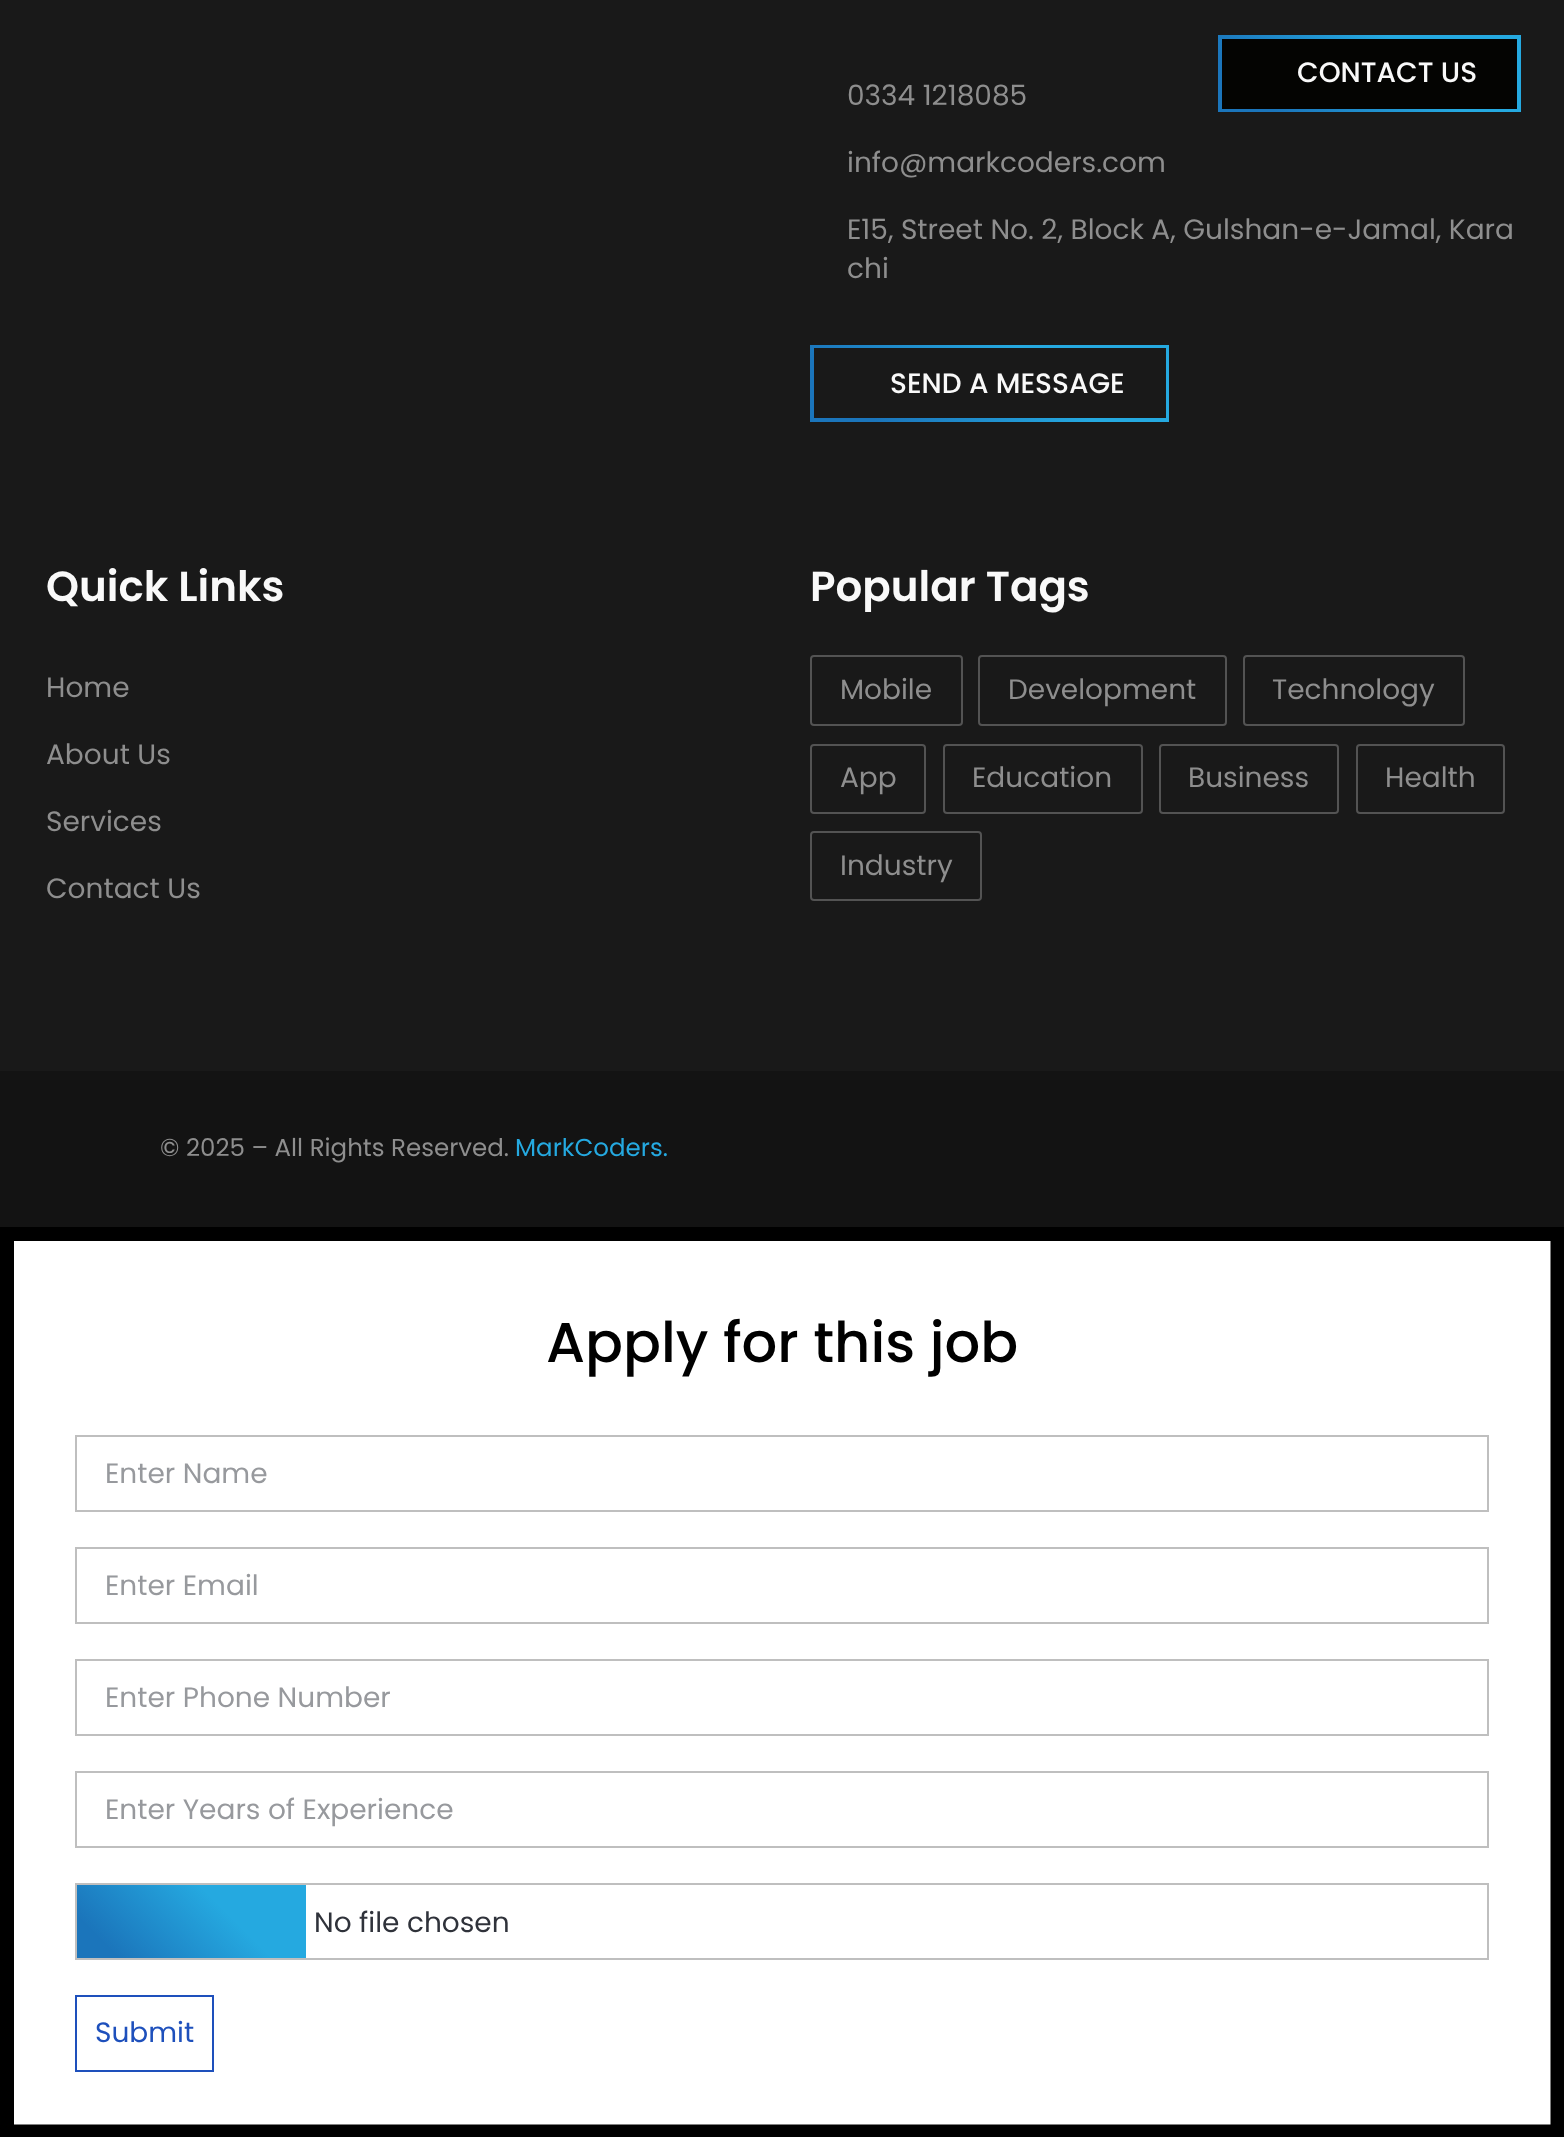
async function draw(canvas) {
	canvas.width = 1564;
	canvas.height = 2137;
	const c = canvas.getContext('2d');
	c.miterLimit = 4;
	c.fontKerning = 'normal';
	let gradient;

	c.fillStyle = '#fff';
	c.fillRect(0, 0, 1564, 2137);
	c.fillStyle = '#191919';
	c.fillRect(0, 0, 1564, 1071);
	gradient = c.createLinearGradient(1274, 168, 1464, -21);
	gradient.addColorStop(0.15, '#1b75bb');
	gradient.addColorStop(0.65, '#25a9e0');
	c.fillStyle = gradient;
	c.fillRect(1218, 35, 303, 77);
	c.fillStyle = '#040402';
	c.fillRect(1222, 39, 295, 70);
	c.font = '500 28px Poppins';
	c.fillStyle = '#f9f9f9';
	c.fillText('CONTACT US', 1297, 82);
	c.font = '28px Poppins';
	c.fillStyle = '#8e8e8e';
	for (const [text, x, y] of [
		['0334 1218085', 847, 105],
		['info@markcoders.com', 847, 172],
		['E15, Street No. 2, Block A, Gulshan-e-Jamal, Kara', 847, 239],
		['chi', 847, 278],
	]) {
		c.fillText(text, x, y);
	}
	gradient = c.createLinearGradient(881, 492, 1099, 274);
	gradient.addColorStop(0.15, '#1b75bb');
	gradient.addColorStop(0.65, '#25a9e0');
	c.fillStyle = gradient;
	c.fillRect(810, 345, 359, 77);
	c.fillStyle = '#191919';
	c.fillRect(814, 348, 352, 70);
	c.font = '500 28px Poppins';
	c.fillStyle = '#f9f9f9';
	c.fillText('SEND A MESSAGE', 890, 393);
	c.font = '600 42px Poppins';
	c.fillText('Quick Links', 46, 601);
	c.font = '28px Poppins';
	c.fillStyle = '#8e8e8e';
	for (const [text, x, y] of [
		['Home', 46, 697],
		['About Us', 46, 764],
		['Services', 46, 831],
		['Contact Us', 46, 898],
	]) {
		c.fillText(text, x, y);
	}
	c.font = '600 42px Poppins';
	c.fillStyle = '#f9f9f9';
	c.fillText('Popular Tags', 810, 601);
	c.beginPath();
	c.roundRect(811, 656, 151, 69, 3);
	c.strokeStyle = '#535353';
	c.lineWidth = 2;
	c.stroke();
	c.font = '28px Poppins';
	c.fillStyle = '#8e8e8e';
	c.fillText('Mobile', 840, 699);
	c.beginPath();
	c.roundRect(979, 656, 247, 69, 3);
	c.stroke();
	c.fillText('Development', 1008, 699);
	c.beginPath();
	c.roundRect(1244, 656, 220, 69, 3);
	c.stroke();
	c.fillText('Technology', 1272, 699);
	c.beginPath();
	c.roundRect(811, 745, 114, 68, 3);
	c.stroke();
	c.fillText('App', 840, 787);
	c.beginPath();
	c.roundRect(944, 745, 198, 68, 3);
	c.stroke();
	c.fillText('Education', 972, 787);
	c.beginPath();
	c.roundRect(1160, 745, 178, 68, 3);
	c.stroke();
	c.fillText('Business', 1188, 787);
	c.beginPath();
	c.roundRect(1357, 745, 147, 68, 3);
	c.stroke();
	c.fillText('Health', 1385, 787);
	c.beginPath();
	c.roundRect(811, 832, 170, 68, 3);
	c.stroke();
	c.fillText('Industry', 840, 875);
	c.fillStyle = '#131313';
	c.fillRect(0, 1071, 1564, 156);
	c.font = '24.5px Poppins';
	c.fillStyle = '#8e8e8e';
	c.fillText('© 2025 – All Rights Reserved.', 160, 1156);
	c.fillStyle = '#25a9e0';
	c.fillText('MarkCoders.', 515, 1156);
	c.beginPath();
	c.moveTo(7, 1234);
	c.lineTo(1557.5, 1234);
	c.lineTo(1557.5, 2131.5);
	c.lineTo(7, 2131.5);
	c.closePath();
	c.strokeStyle = '#000';
	c.lineWidth = 14;
	c.stroke();
	c.font = '500 56px Poppins';
	c.fillStyle = '#000';
	c.fillText('Apply for this job', 546, 1362);
	c.strokeStyle = '#bfbfbf';
	c.lineWidth = 2;
	c.strokeRect(76, 1436, 1412, 75);
	c.font = '28px Poppins';
	c.fillStyle = '#97999d';
	c.fillText('Enter Name', 105, 1483);
	c.strokeRect(76, 1548, 1412, 75);
	c.fillText('Enter Email', 105, 1595);
	c.strokeRect(76, 1660, 1412, 75);
	c.fillText('Enter Phone Number', 105, 1707);
	c.strokeRect(76, 1772, 1412, 75);
	c.fillText('Enter Years of Experience', 105, 1819);
	c.strokeRect(76, 1884, 1412, 75);
	gradient = c.createLinearGradient(115, 2000, 268, 1847);
	gradient.addColorStop(0.15, '#1b75bb');
	gradient.addColorStop(0.65, '#25a9e0');
	c.fillStyle = gradient;
	c.fillRect(77, 1885, 229, 73);
	c.fillStyle = '#2f323a';
	c.fillText('No file chosen', 314, 1932);
	c.strokeStyle = '#1e50bc';
	c.strokeRect(76, 1996, 137, 75);
	c.fillStyle = '#1e50bc';
	c.fillText('Submit', 95, 2042);
}

draw(document.querySelector('canvas'));
